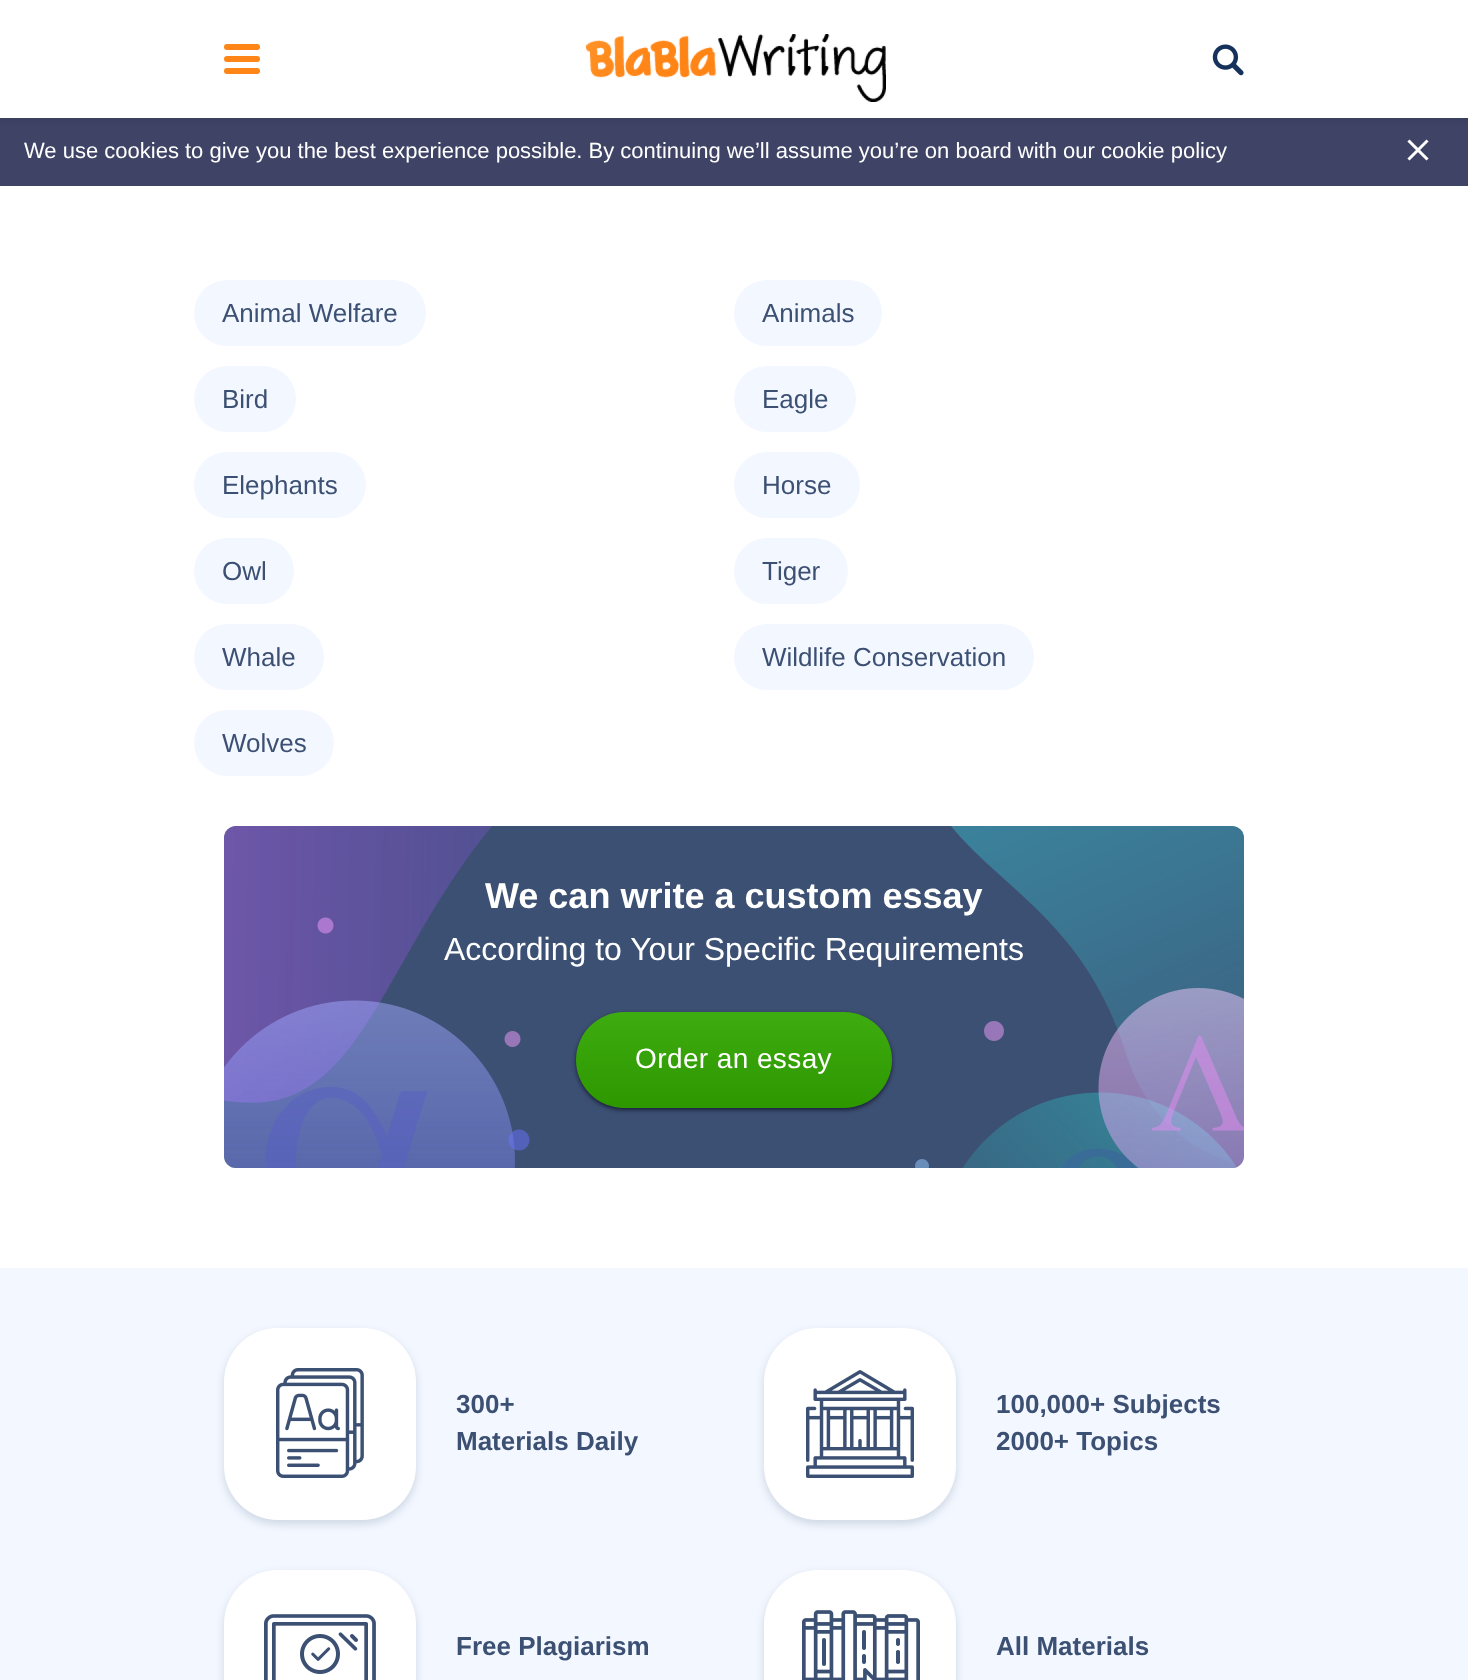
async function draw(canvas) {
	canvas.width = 1468;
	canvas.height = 1680;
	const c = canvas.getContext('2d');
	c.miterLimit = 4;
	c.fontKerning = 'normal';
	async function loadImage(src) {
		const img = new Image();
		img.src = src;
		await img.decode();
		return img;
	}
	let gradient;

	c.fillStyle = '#fff';
	c.fillRect(0, 0, 1468, 1680);
	c.fillStyle = '#353a5ef2';
	c.fillRect(0, 118, 1468, 68);
	c.fillStyle = '#1e20301a';
	c.filter = 'blur(2px)';
	c.beginPath();
	c.rect(-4, -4, 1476, 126);
	c.fill();
	c.filter = 'none';
	c.fillStyle = '#fff';
	c.fillRect(0, 0, 1468, 118);
	c.fillStyle = '#ff8516';
	c.beginPath();
	c.roundRect(224, 44, 36, 6, 3);
	c.fill();
	c.beginPath();
	c.roundRect(224, 56, 36, 6, 3);
	c.fill();
	c.beginPath();
	c.roundRect(224, 68, 36, 6, 3);
	c.fill();
	c.drawImage(await loadImage('img1.png'), 586, 34, 300, 68);
	c.drawImage(await loadImage('img2.png'), 1212, 44, 32, 32);
	c.font = '22px Liberation Sans';
	c.fillStyle = '#fff';
	c.fillText('We use cookies to give you the best experience possible. By continuing we’ll assume you’re on board with our cookie policy', 24, 158);
	c.beginPath();
	c.moveTo(1426.5, 141.5);
	c.lineTo(1409.5, 158.5);
	c.moveTo(1426.5, 158.5);
	c.lineTo(1409.5, 141.5);
	c.strokeStyle = '#fff';
	c.lineWidth = 3;
	c.lineCap = 'square';
	c.stroke();
	c.fillStyle = '#f3f7ff';
	c.beginPath();
	c.roundRect(194, 280, 232, 66, 33);
	c.fill();
	c.font = '26px Liberation Sans';
	c.fillStyle = '#3c5073';
	c.fillText('Animal Welfare', 222, 322);
	c.fillStyle = '#f3f7ff';
	c.beginPath();
	c.roundRect(734, 280, 148, 66, 33);
	c.fill();
	c.fillStyle = '#3c5073';
	c.fillText('Animals', 762, 322);
	c.fillStyle = '#f3f7ff';
	c.beginPath();
	c.roundRect(194, 366, 102, 66, 33);
	c.fill();
	c.fillStyle = '#3c5073';
	c.fillText('Bird', 222, 408);
	c.fillStyle = '#f3f7ff';
	c.beginPath();
	c.roundRect(734, 366, 122, 66, 33);
	c.fill();
	c.fillStyle = '#3c5073';
	c.fillText('Eagle', 762, 408);
	c.fillStyle = '#f3f7ff';
	c.beginPath();
	c.roundRect(194, 452, 172, 66, 33);
	c.fill();
	c.fillStyle = '#3c5073';
	c.fillText('Elephants', 222, 494);
	c.fillStyle = '#f3f7ff';
	c.beginPath();
	c.roundRect(734, 452, 126, 66, 33);
	c.fill();
	c.fillStyle = '#3c5073';
	c.fillText('Horse', 762, 494);
	c.fillStyle = '#f3f7ff';
	c.beginPath();
	c.roundRect(194, 538, 100, 66, 33);
	c.fill();
	c.fillStyle = '#3c5073';
	c.fillText('Owl', 222, 580);
	c.fillStyle = '#f3f7ff';
	c.beginPath();
	c.roundRect(734, 538, 114, 66, 33);
	c.fill();
	c.fillStyle = '#3c5073';
	c.fillText('Tiger', 762, 580);
	c.fillStyle = '#f3f7ff';
	c.beginPath();
	c.roundRect(194, 624, 130, 66, 33);
	c.fill();
	c.fillStyle = '#3c5073';
	c.fillText('Whale', 222, 666);
	c.fillStyle = '#f3f7ff';
	c.beginPath();
	c.roundRect(734, 624, 300, 66, 33);
	c.fill();
	c.fillStyle = '#3c5073';
	c.fillText('Wildlife Conservation', 762, 666);
	c.fillStyle = '#f3f7ff';
	c.beginPath();
	c.roundRect(194, 710, 140, 66, 33);
	c.fill();
	c.fillStyle = '#3c5073';
	c.fillText('Wolves', 222, 752);
	c.beginPath();
	c.roundRect(224, 826, 1020, 342, 12);
	c.fill();
	c.font = 'bold 36px Liberation Sans';
	c.fillStyle = '#fff';
	c.fillText('We can write a custom essay', 485, 908);
	c.font = '32px Liberation Sans';
	c.fillText('According to Your Specific Requirements', 444, 960);
	c.drawImage(await loadImage('img3.png'), 224, 826, 306, 342);
	c.drawImage(await loadImage('img4.png'), 915, 826, 329, 342);
	c.fillStyle = '#1a1d38';
	c.filter = 'blur(2px)';
	c.beginPath();
	c.roundRect(576, 1014, 316, 96, 48);
	c.fill();
	c.filter = 'none';
	gradient = c.createLinearGradient(734, 1108, 734, 1012);
	gradient.addColorStop(0, '#2d9700');
	gradient.addColorStop(1, '#3eac10');
	c.fillStyle = gradient;
	c.beginPath();
	c.roundRect(576, 1012, 316, 96, 48);
	c.fill();
	c.letterSpacing = '0.4px';
	c.font = '28px Liberation Sans';
	c.fillStyle = '#fff';
	c.fillText('Order an essay', 635, 1068);
	c.fillStyle = '#f3f7ff';
	c.fillRect(0, 1268, 1468, 412);
	c.fillStyle = '#a8b7c780';
	c.filter = 'blur(4px)';
	c.beginPath();
	c.roundRect(224, 1332, 192, 192, 54);
	c.fill();
	c.filter = 'none';
	c.fillStyle = '#fff';
	c.beginPath();
	c.roundRect(224, 1328, 192, 192, 54);
	c.fill();
	c.drawImage(await loadImage('img5.png'), 276, 1368, 88, 110);
	c.letterSpacing = '0px';
	c.font = 'bold 26px Liberation Sans';
	c.fillStyle = '#3c5073';
	c.fillText('300+', 456, 1413);
	c.fillText('Materials Daily', 456, 1450);
	c.fillStyle = '#a8b7c780';
	c.filter = 'blur(4px)';
	c.beginPath();
	c.roundRect(764, 1332, 192, 192, 54);
	c.fill();
	c.filter = 'none';
	c.fillStyle = '#fff';
	c.beginPath();
	c.roundRect(764, 1328, 192, 192, 54);
	c.fill();
	c.drawImage(await loadImage('img6.png'), 806, 1370, 108, 108);
	c.fillStyle = '#3c5073';
	c.fillText('100,000+ Subjects', 996, 1413);
	c.fillText('2000+ Topics', 996, 1450);
	c.fillStyle = '#a8b7c780';
	c.filter = 'blur(4px)';
	c.beginPath();
	c.roundRect(224, 1574, 192, 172, 54);
	c.fill();
	c.filter = 'none';
	c.fillStyle = '#fff';
	c.beginPath();
	c.roundRect(224, 1570, 192, 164, 54);
	c.fill();
	c.drawImage(await loadImage('img7.png'), 264, 1614, 112, 66);
	c.fillStyle = '#3c5073';
	c.fillText('Free Plagiarism', 456, 1655);
	c.fillStyle = '#a8b7c780';
	c.filter = 'blur(4px)';
	c.beginPath();
	c.roundRect(764, 1574, 192, 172, 54);
	c.fill();
	c.filter = 'none';
	c.fillStyle = '#fff';
	c.beginPath();
	c.roundRect(764, 1570, 192, 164, 54);
	c.fill();
	c.drawImage(await loadImage('img8.png'), 802, 1610, 118, 70);
	c.fillStyle = '#3c5073';
	c.fillText('All Materials', 996, 1655);
}

draw(document.querySelector('canvas'));
